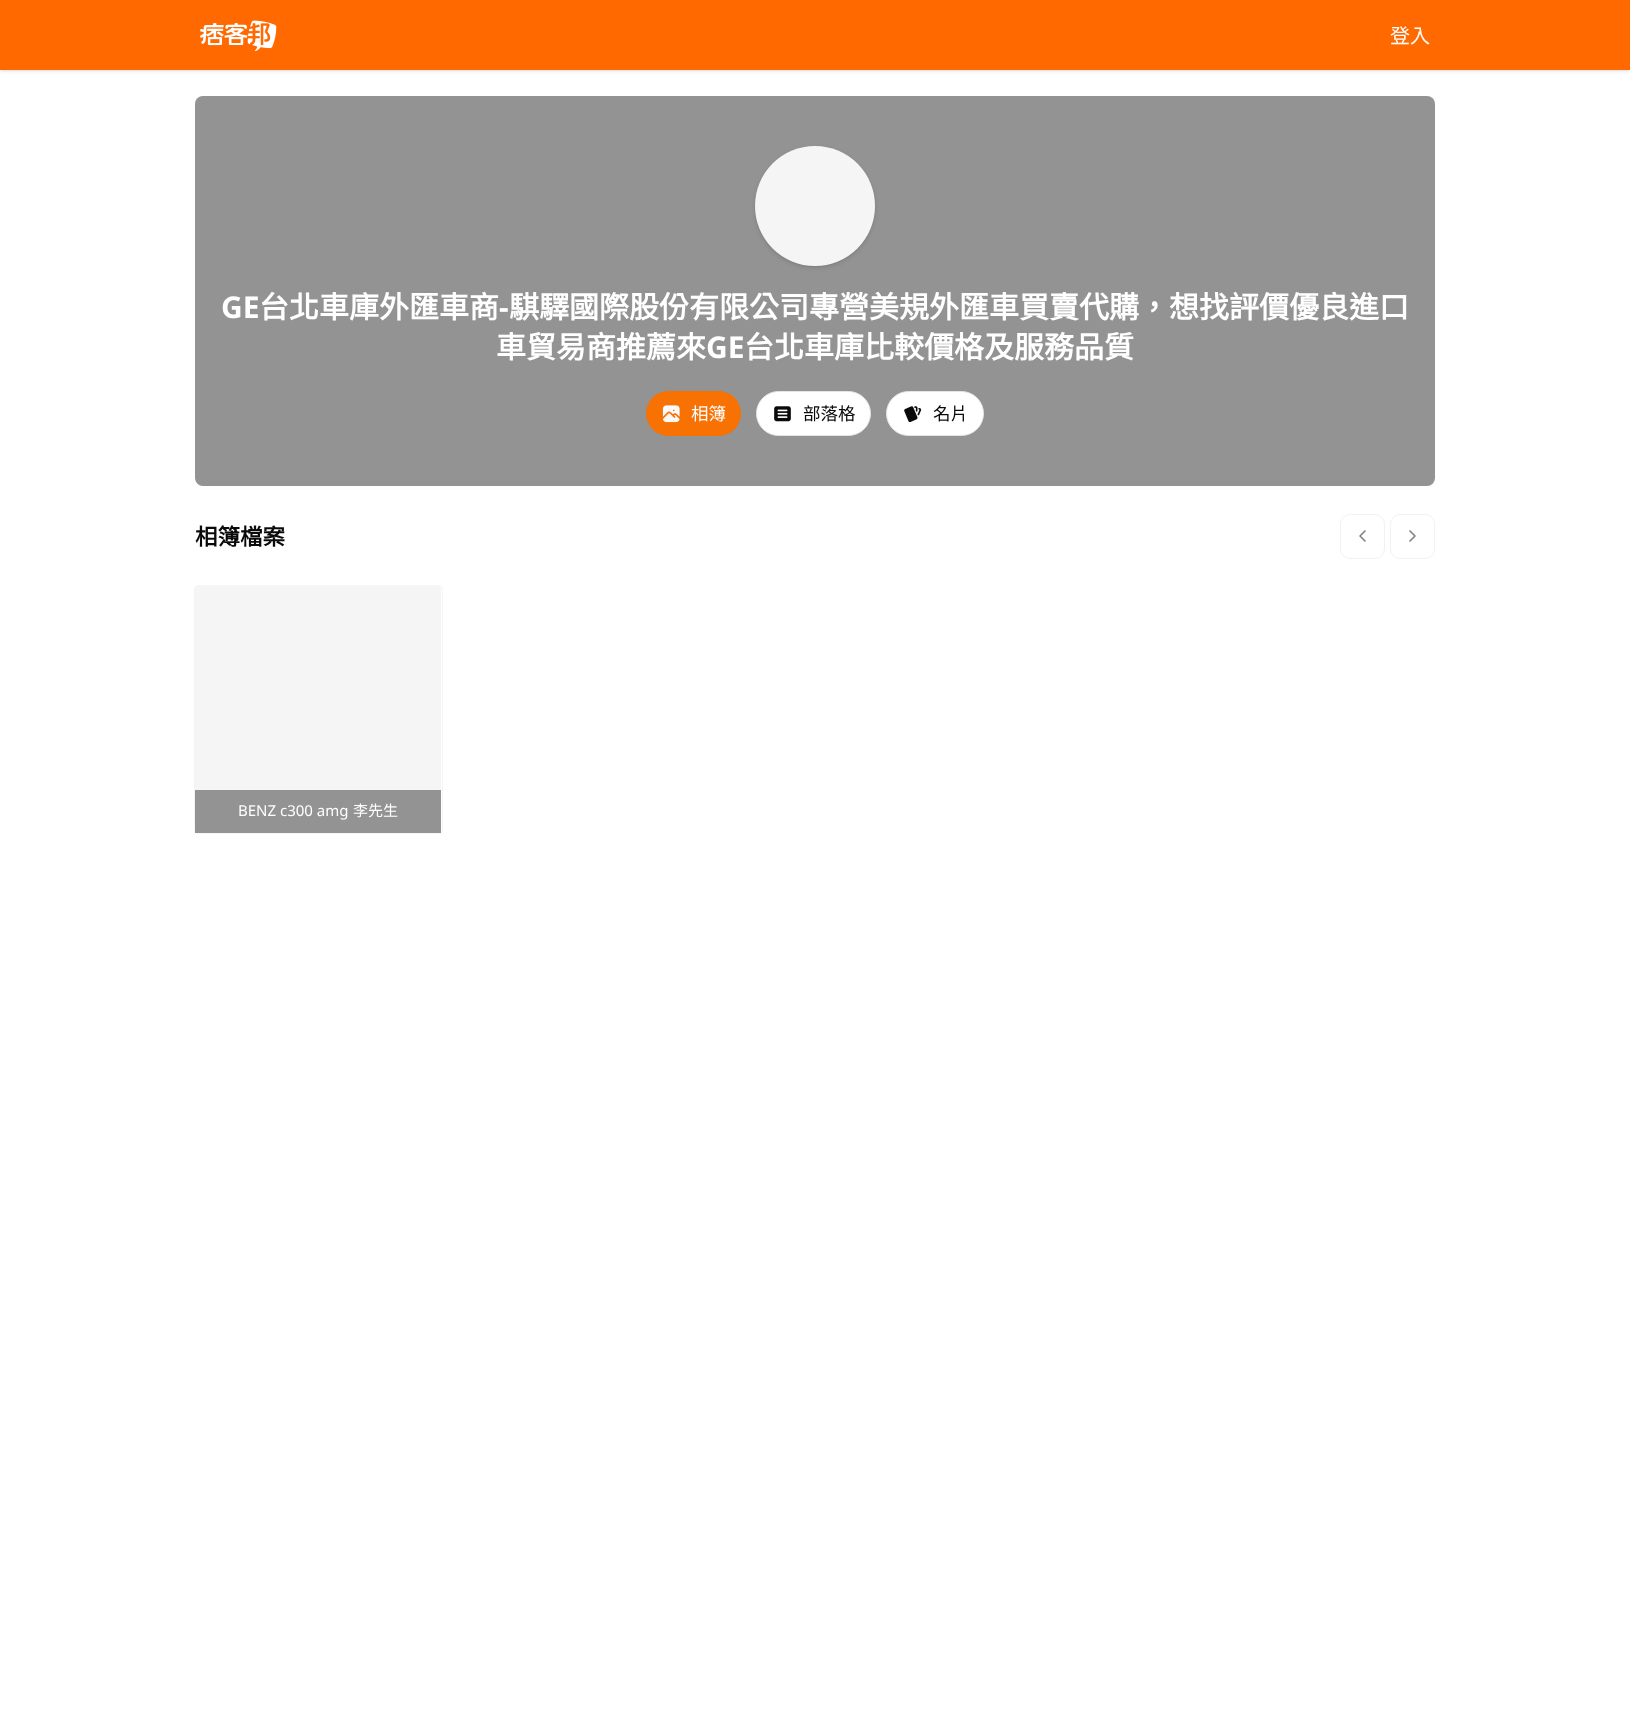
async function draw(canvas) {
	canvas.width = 1630;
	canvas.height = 1716;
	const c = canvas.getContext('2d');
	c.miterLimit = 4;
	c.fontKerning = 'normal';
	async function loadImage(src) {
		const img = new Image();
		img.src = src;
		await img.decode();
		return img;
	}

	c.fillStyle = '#fff';
	c.fillRect(0, 0, 1630, 1716);
	c.fillStyle = '#0000001a';
	c.filter = 'blur(1px)';
	c.beginPath();
	c.rect(1, 3, 1628, 67);
	c.fill();
	c.filter = 'none';
	c.filter = 'blur(2px)';
	c.beginPath();
	c.rect(0, 1, 1630, 70);
	c.fill();
	c.filter = 'none';
	c.fillStyle = '#ff6900';
	c.fillRect(0, 0, 1630, 70);
	c.drawImage(await loadImage('img1.png'), 200, 20, 77, 31);
	c.font = '20px Noto Sans CJK TC';
	c.fillStyle = '#fff';
	c.fillText('登入', 1390, 43);
	c.fillStyle = '#f5f5f5';
	c.beginPath();
	c.roundRect(195, 96, 1240, 390, 8);
	c.fill();
	c.fillStyle = '#00000066';
	c.beginPath();
	c.roundRect(195, 96, 1240, 390, 8);
	c.fill();
	c.fillStyle = '#0000001a';
	c.filter = 'blur(1px)';
	c.beginPath();
	c.roundRect(756, 149, 118, 117, 58.5);
	c.fill();
	c.filter = 'none';
	c.filter = 'blur(2px)';
	c.beginPath();
	c.roundRect(755, 148, 120, 120, 60);
	c.fill();
	c.filter = 'none';
	c.fillStyle = '#f5f5f5';
	c.beginPath();
	c.arc(815, 206, 60, 0, 2 * Math.PI);
	c.fill();
	c.font = 'bold 30px Noto Sans';
	c.fillStyle = '#fff';
	c.fillText('GE', 221, 318);
	c.font = 'bold 30px Noto Sans CJK TC';
	c.fillText('台北車庫外匯車商', 259, 318);
	c.font = 'bold 30px Noto Sans';
	c.fillText('-', 499, 318);
	c.font = 'bold 30px Noto Sans CJK TC';
	c.fillText('騏驛國際股份有限公司專營美規外匯車買賣代購，想找評價優良進口', 509, 318);
	c.fillText('車貿易商推薦來', 496, 358);
	c.font = 'bold 30px Noto Sans';
	c.fillText('GE', 706, 358);
	c.font = 'bold 30px Noto Sans CJK TC';
	c.fillText('台北車庫比較價格及服務品質', 744, 358);
	c.fillStyle = '#f87103';
	c.beginPath();
	c.roundRect(646, 391, 95, 45, 22.5);
	c.fill();
	c.drawImage(await loadImage('img2.png'), 662, 405, 18, 18);
	c.font = '17.5px Noto Sans CJK TC';
	c.fillStyle = '#fff';
	c.fillText('相簿', 691, 420);
	c.beginPath();
	c.roundRect(756.5, 391.5, 114, 44, 22);
	c.fill();
	c.strokeStyle = '#e5e5e5';
	c.stroke();
	c.drawImage(await loadImage('img3.png'), 774, 406, 17, 16);
	c.fillStyle = '#0a0a0a';
	c.fillText('部落格', 803, 420);
	c.fillStyle = '#fff';
	c.beginPath();
	c.roundRect(886.5, 391.5, 97, 44, 22);
	c.fill();
	c.stroke();
	c.drawImage(await loadImage('img4.png'), 904, 406, 18, 17);
	c.fillStyle = '#0a0a0a';
	c.fillText('名片', 933, 420);
	c.font = 'bold 22.5px Noto Sans CJK TC';
	c.fillText('相簿檔案', 195, 545);
	c.beginPath();
	c.roundRect(1340.5, 514.5, 44, 44, 9.5);
	c.strokeStyle = '#f2f2f2';
	c.stroke();
	c.beginPath();
	c.moveTo(1365, 541);
	c.lineTo(1360, 536);
	c.lineTo(1365, 531);
	c.strokeStyle = '#858585';
	c.lineWidth = 1.7;
	c.lineCap = 'round';
	c.lineJoin = 'round';
	c.stroke();
	c.beginPath();
	c.roundRect(1390.5, 514.5, 44, 44, 9.5);
	c.strokeStyle = '#f2f2f2';
	c.lineWidth = 1;
	c.lineJoin = 'miter';
	c.stroke();
	c.beginPath();
	c.moveTo(1410, 541);
	c.lineTo(1415, 536);
	c.lineTo(1410, 531);
	c.strokeStyle = '#858585';
	c.lineWidth = 1.7;
	c.lineJoin = 'round';
	c.stroke();
	c.fillStyle = '#f5f5f5';
	c.beginPath();
	c.roundRect(195, 586, 246, 247, 2.5);
	c.fill();
	c.beginPath();
	c.roundRect(194.5, 585.5, 248, 248, 3.5);
	c.strokeStyle = '#f5f5f5';
	c.lineWidth = 1;
	c.lineJoin = 'miter';
	c.stroke();
	c.fillStyle = '#00000066';
	c.fillRect(195, 790, 246, 43);
	c.font = '15px Noto Sans';
	c.fillStyle = '#fff';
	c.fillText('BENZ c300 amg', 238, 816);
	c.font = '15px Noto Sans CJK TC';
	c.fillText('李先生', 353, 816);
}

draw(document.querySelector('canvas'));
